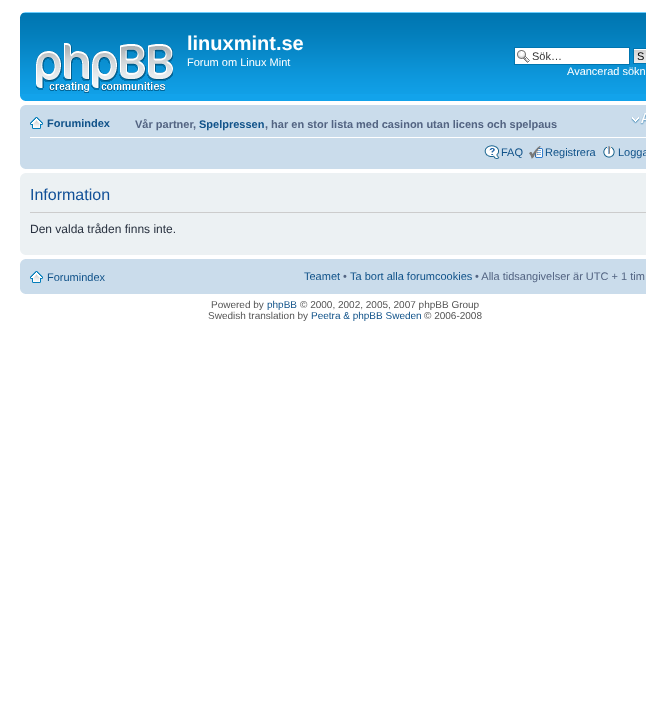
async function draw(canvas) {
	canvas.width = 646;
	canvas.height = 716;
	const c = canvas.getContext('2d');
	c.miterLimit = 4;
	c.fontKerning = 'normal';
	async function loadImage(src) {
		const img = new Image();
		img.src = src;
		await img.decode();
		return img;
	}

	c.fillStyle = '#fff';
	c.fillRect(0, 0, 646, 716);
	c.fillStyle = '#12a3eb';
	c.fillRect(20, 94, 626, 7);
	c.drawImage(await loadImage('img1.png'), 20, 12, 626, 82);
	c.drawImage(await loadImage('img2.png'), 20, 12, 5, 5);
	c.drawImage(await loadImage('img3.png'), 36, 43, 137, 50);
	c.font = 'bold 20px Liberation Sans';
	c.fillStyle = '#fff';
	c.fillText('linuxmint.se', 187, 50);
	c.font = '11px Liberation Sans';
	c.fillText('Forum om Linux Mint', 187, 66);
	c.fillRect(515, 48, 114, 16);
	c.drawImage(await loadImage('img4.png'), 517, 50, 13, 13);
	c.strokeStyle = '#0075b0';
	c.strokeRect(514.5, 47.5, 115, 17);
	c.fillStyle = '#333';
	c.fillText('Sök…', 532, 60);
	c.drawImage(await loadImage('img5.png'), 634, 49, 12, 14);
	c.strokeRect(633.5, 48.5, 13, 15);
	c.fillStyle = '#000';
	c.fillText('S', 637, 60);
	c.fillStyle = '#fff';
	c.fillText('Avancerad sökn', 567, 75);
	c.drawImage(await loadImage('img6.png'), 20, 96, 5, 5);
	c.fillStyle = '#cadceb';
	c.fillRect(20, 105, 626, 64);
	c.drawImage(await loadImage('img7.png'), 20, 105, 5, 5);
	c.fillStyle = '#fff';
	c.fillRect(30, 137, 616, 1);
	c.drawImage(await loadImage('img8.png'), 30, 117, 13, 12);
	c.font = 'bold 11px Liberation Sans';
	c.fillStyle = '#105289';
	c.fillText('Forumindex', 47, 127);
	c.fillStyle = '#536482';
	c.fillText('Vår partner,', 135, 128);
	c.fillStyle = '#105289';
	c.fillText('Spelpressen', 199, 128);
	c.fillStyle = '#536482';
	c.fillText(', har en stor lista med casinon utan licens och spelpaus', 265, 128);
	c.drawImage(await loadImage('img9.png'), 631, 113, 15, 12);
	c.drawImage(await loadImage('img10.png'), 484, 145, 16, 14);
	c.font = '11px Liberation Sans';
	c.fillStyle = '#105289';
	c.fillText('FAQ', 501, 156);
	c.drawImage(await loadImage('img11.png'), 529, 146, 14, 13);
	c.fillText('Registrera', 545, 156);
	c.drawImage(await loadImage('img12.png'), 603, 146, 12, 12);
	c.fillText('Logga', 618, 156);
	c.drawImage(await loadImage('img13.png'), 20, 164, 5, 5);
	c.fillStyle = '#ecf1f3';
	c.fillRect(20, 173, 626, 82);
	c.drawImage(await loadImage('img14.png'), 20, 173, 5, 5);
	c.fillStyle = '#ccc';
	c.fillRect(30, 212, 616, 1);
	c.font = '16px Liberation Sans';
	c.fillStyle = '#115098';
	c.fillText('Information', 30, 200);
	c.font = '12px Liberation Sans';
	c.fillStyle = '#28313f';
	c.fillText('Den valda tråden finns inte.', 30, 233);
	c.drawImage(await loadImage('img15.png'), 20, 250, 5, 5);
	c.fillStyle = '#cadceb';
	c.fillRect(20, 259, 626, 35);
	c.drawImage(await loadImage('img7.png'), 20, 259, 5, 5);
	c.drawImage(await loadImage('img8.png'), 30, 271, 13, 12);
	c.font = '11px Liberation Sans';
	c.fillStyle = '#105289';
	c.fillText('Forumindex', 47, 281);
	c.fillText('Teamet', 304, 280);
	c.fillStyle = '#536482';
	c.fillText('•', 343, 280);
	c.fillStyle = '#105289';
	c.fillText('Ta bort alla forumcookies', 350, 280);
	c.fillStyle = '#536482';
	c.fillText('• Alla tidsangivelser är UTC + 1 tim', 475, 280);
	c.drawImage(await loadImage('img13.png'), 20, 289, 5, 5);
	c.font = '10px Liberation Sans';
	c.fillStyle = '#555';
	c.fillText('Powered by', 211, 308);
	c.fillStyle = '#105289';
	c.fillText('phpBB', 267, 308);
	c.fillStyle = '#555';
	c.fillText('© 2000, 2002, 2005, 2007 phpBB Group', 300, 308);
	c.fillText('Swedish translation by', 208, 319);
	c.fillStyle = '#105289';
	c.fillText('Peetra & phpBB Sweden', 311, 319);
	c.fillStyle = '#555';
	c.fillText('© 2006-2008', 424, 319);
}

draw(document.querySelector('canvas'));
